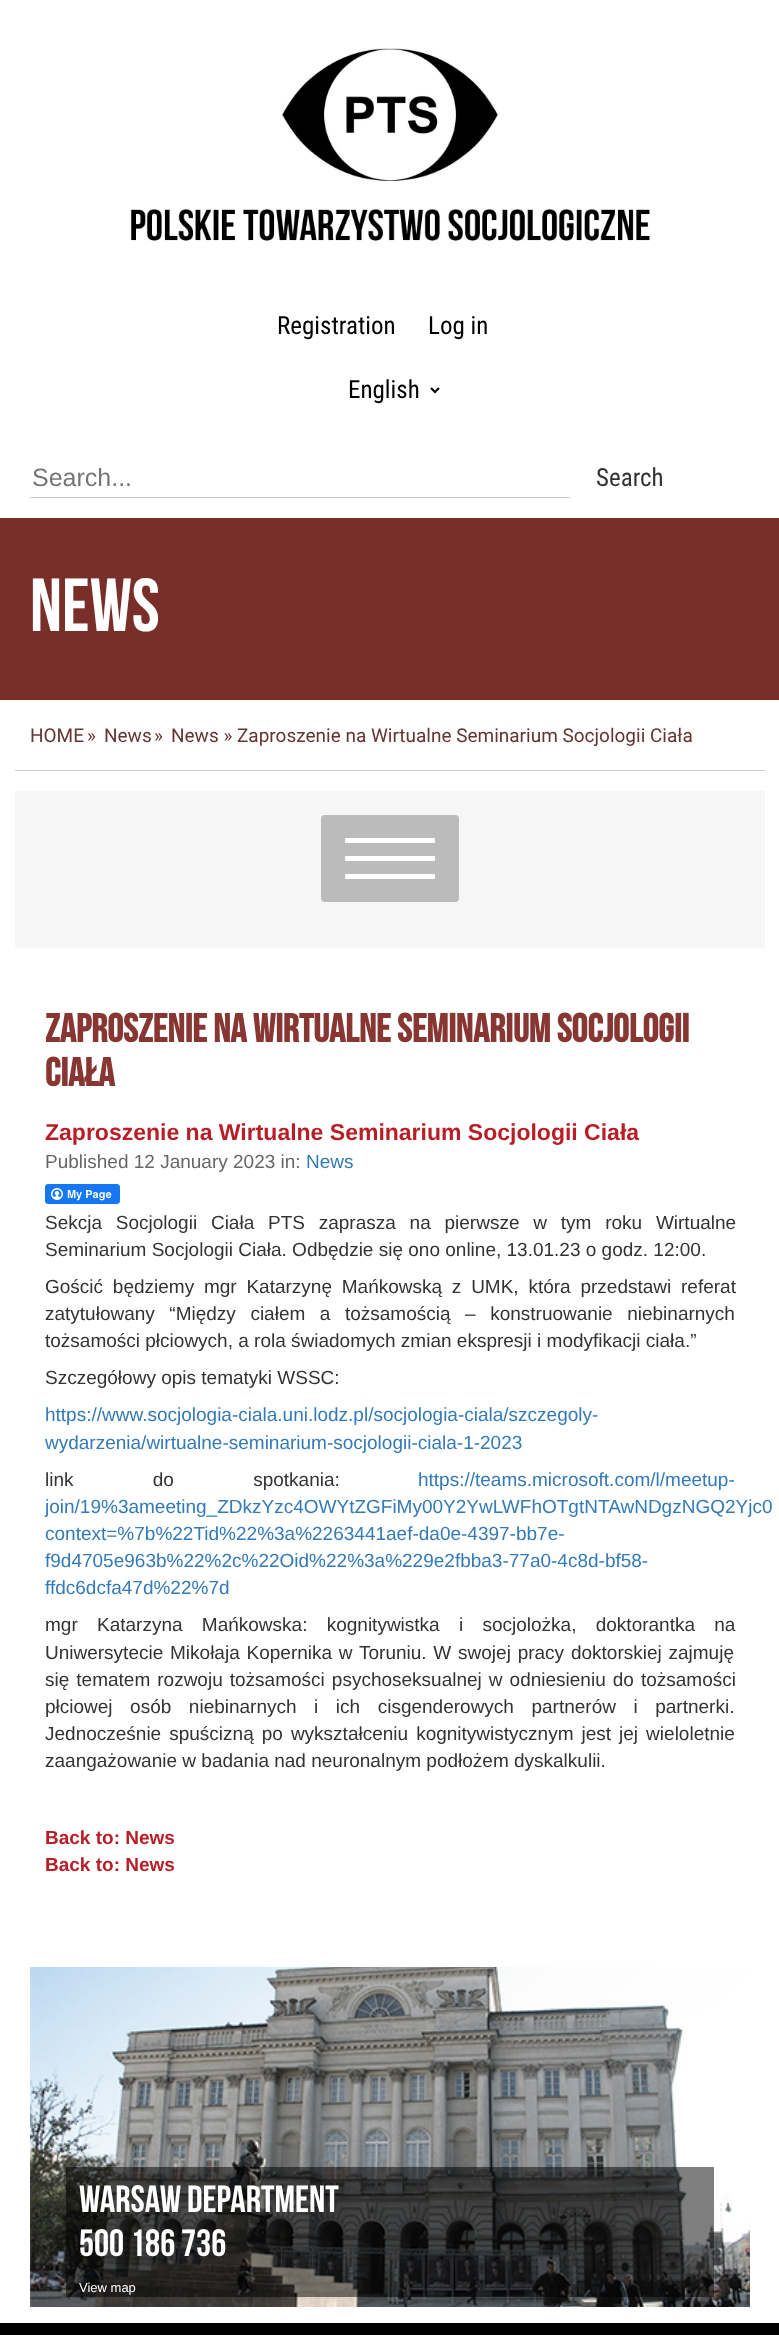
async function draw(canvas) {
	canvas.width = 779;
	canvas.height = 2335;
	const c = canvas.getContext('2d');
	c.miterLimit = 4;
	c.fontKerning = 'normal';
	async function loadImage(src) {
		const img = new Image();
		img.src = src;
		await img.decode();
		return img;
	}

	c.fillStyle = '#fff';
	c.fillRect(0, 0, 779, 2335);
	c.drawImage(await loadImage('img1.png'), 131, 48, 519, 193);
	c.font = '25px Roboto Condensed';
	c.fillStyle = '#000';
	c.fillText('Registration', 277, 334);
	c.fillText('Log in', 428, 334);
	c.beginPath();
	c.moveTo(431, 388);
	c.lineTo(435, 392);
	c.lineTo(439, 388);
	c.strokeStyle = '#000';
	c.lineWidth = 2;
	c.stroke();
	c.fillText('English', 348, 398);
	c.fillStyle = '#ccc';
	c.fillRect(30, 497, 540, 1);
	c.font = '25px Liberation Sans';
	c.fillStyle = '#757575';
	c.fillText('Search...', 32, 486);
	c.font = '25px Roboto Condensed';
	c.fillStyle = '#333';
	c.fillText('Search', 596, 486);
	c.fillStyle = '#792e29';
	c.fillRect(0, 518, 779, 182);
	c.font = '75px Bebas Neue';
	c.fillStyle = '#fff';
	c.fillText('NEWS', 30, 631);
	c.fillStyle = '#ccc';
	c.fillRect(15, 770, 750, 1);
	c.font = '19px Roboto';
	c.fillStyle = '#643532';
	for (const [text, x, y] of [
		['HOME', 30, 742],
		['»', 87, 742],
		['News', 104, 742],
		['»', 154, 742],
		['News » Zaproszenie na Wirtualne Seminarium Socjologii Ciała', 171, 742],
	]) {
		c.fillText(text, x, y);
	}
	c.fillStyle = '#f6f6f6';
	c.fillRect(15, 791, 750, 157);
	c.fillStyle = '#bcbbbb';
	c.beginPath();
	c.roundRect(321, 815, 138, 87, 4);
	c.fill();
	c.fillStyle = '#fff';
	c.beginPath();
	c.roundRect(345, 838, 90, 5, 1);
	c.fill();
	c.beginPath();
	c.roundRect(345, 856, 90, 5, 1);
	c.fill();
	c.beginPath();
	c.roundRect(345, 874, 90, 5, 1);
	c.fill();
	c.font = 'bold 40px Bebas Neue';
	c.fillStyle = '#873631';
	c.fillText('ZAPROSZENIE NA WIRTUALNE SEMINARIUM SOCJOLOGII', 45, 1042);
	c.fillText('CIAŁA', 45, 1086);
	c.font = 'bold 23px Liberation Sans';
	c.fillStyle = '#b91d26';
	c.fillText('Zaproszenie na Wirtualne Seminarium Socjologii Ciała', 45, 1140);
	c.font = '19px Liberation Sans';
	c.fillStyle = '#676767';
	c.fillText('Published 12 January 2023 in:', 45, 1168);
	c.fillStyle = '#337ab7';
	c.fillText('News', 306, 1168);
	c.drawImage(await loadImage('img2.png'), 45, 1184, 75, 20);
	c.wordSpacing = '8.5px';
	c.fillStyle = '#333';
	c.fillText('Sekcja Socjologii Ciała PTS zaprasza na pierwsze w tym roku Wirtualne', 45, 1229);
	c.wordSpacing = '0px';
	c.fillText('Seminarium Socjologii Ciała. Odbędzie się ono online, 13.01.23 o godz. 12:00.', 45, 1256);
	c.wordSpacing = '4.5px';
	c.fillText('Gościć będziemy mgr Katarzynę Mańkowską z UMK, która przedstawi referat', 45, 1293);
	c.wordSpacing = '9.25px';
	c.fillText('zatytułowany “Między ciałem a tożsamością – konstruowanie niebinarnych', 45, 1320);
	c.wordSpacing = '0px';
	c.fillText('tożsamości płciowych, a rola świadomych zmian ekspresji i modyfikacji ciała.”', 45, 1347);
	c.fillText('Szczegółowy opis tematyki WSSC:', 45, 1384);
	c.fillStyle = '#337ab7';
	c.fillText('https://www.socjologia-ciala.uni.lodz.pl/socjologia-ciala/szczegoly-', 45, 1421);
	c.fillText('wydarzenia/wirtualne-seminarium-socjologii-ciala-1-2023', 45, 1449);
	c.wordSpacing = '74px';
	c.fillStyle = '#333';
	c.fillText('link do spotkania:', 45, 1486);
	c.wordSpacing = '0px';
	c.fillStyle = '#337ab7';
	for (const [text, x, y] of [
		['https://teams.microsoft.com/l/meetup-', 418, 1486],
		['join/19%3ameeting_ZDkzYzc4OWYtZGFiMy00Y2YwLWFhOTgtNTAwNDgzNGQ2Yjc0', 45, 1513],
		['context=%7b%22Tid%22%3a%2263441aef-da0e-4397-bb7e-', 45, 1540],
		['f9d4705e963b%22%2c%22Oid%22%3a%229e2fbba3-77a0-4c8d-bf58-', 45, 1567],
		['ffdc6dcfa47d%22%7d', 45, 1594],
	]) {
		c.fillText(text, x, y);
	}
	c.wordSpacing = '14px';
	c.fillStyle = '#333';
	c.fillText('mgr Katarzyna Mańkowska: kognitywistka i socjolożka, doktorantka na', 45, 1631);
	c.wordSpacing = '1.5px';
	c.fillText('Uniwersytecie Mikołaja Kopernika w Toruniu. W swojej pracy doktorskiej zajmuję', 45, 1659);
	c.wordSpacing = '1.75px';
	c.fillText('się tematem rozwoju tożsamości psychoseksualnej w odniesieniu do tożsamości', 45, 1686);
	c.wordSpacing = '12.25px';
	c.fillText('płciowej osób niebinarnych i ich cisgenderowych partnerów i partnerki.', 45, 1713);
	c.wordSpacing = '2.75px';
	c.fillText('Jednocześnie spuścizną po wykształceniu kognitywistycznym jest jej wieloletnie', 45, 1740);
	c.wordSpacing = '0px';
	c.fillText('zaangażowanie w badania nad neuronalnym podłożem dyskalkulii.', 45, 1767);
	c.font = 'bold 19px Liberation Sans';
	c.fillStyle = '#b91d26';
	c.fillText('Back to: News', 45, 1844);
	c.fillText('Back to: News', 45, 1871);
	c.drawImage(await loadImage('img3.png'), 30, 1967, 720, 340);
	c.fillStyle = '#00000080';
	c.fillRect(66, 2167, 648, 130);
	c.font = '38px Bebas Neue';
	c.fillStyle = '#fff';
	c.fillText('WARSAW DEPARTMENT', 79, 2212);
	c.fillText('500 186 736', 79, 2256);
	c.font = '13px Liberation Sans';
	c.fillText('View map', 79, 2292);
	c.fillStyle = '#000';
	c.fillRect(0, 2323, 779, 12);
}

draw(document.querySelector('canvas'));
